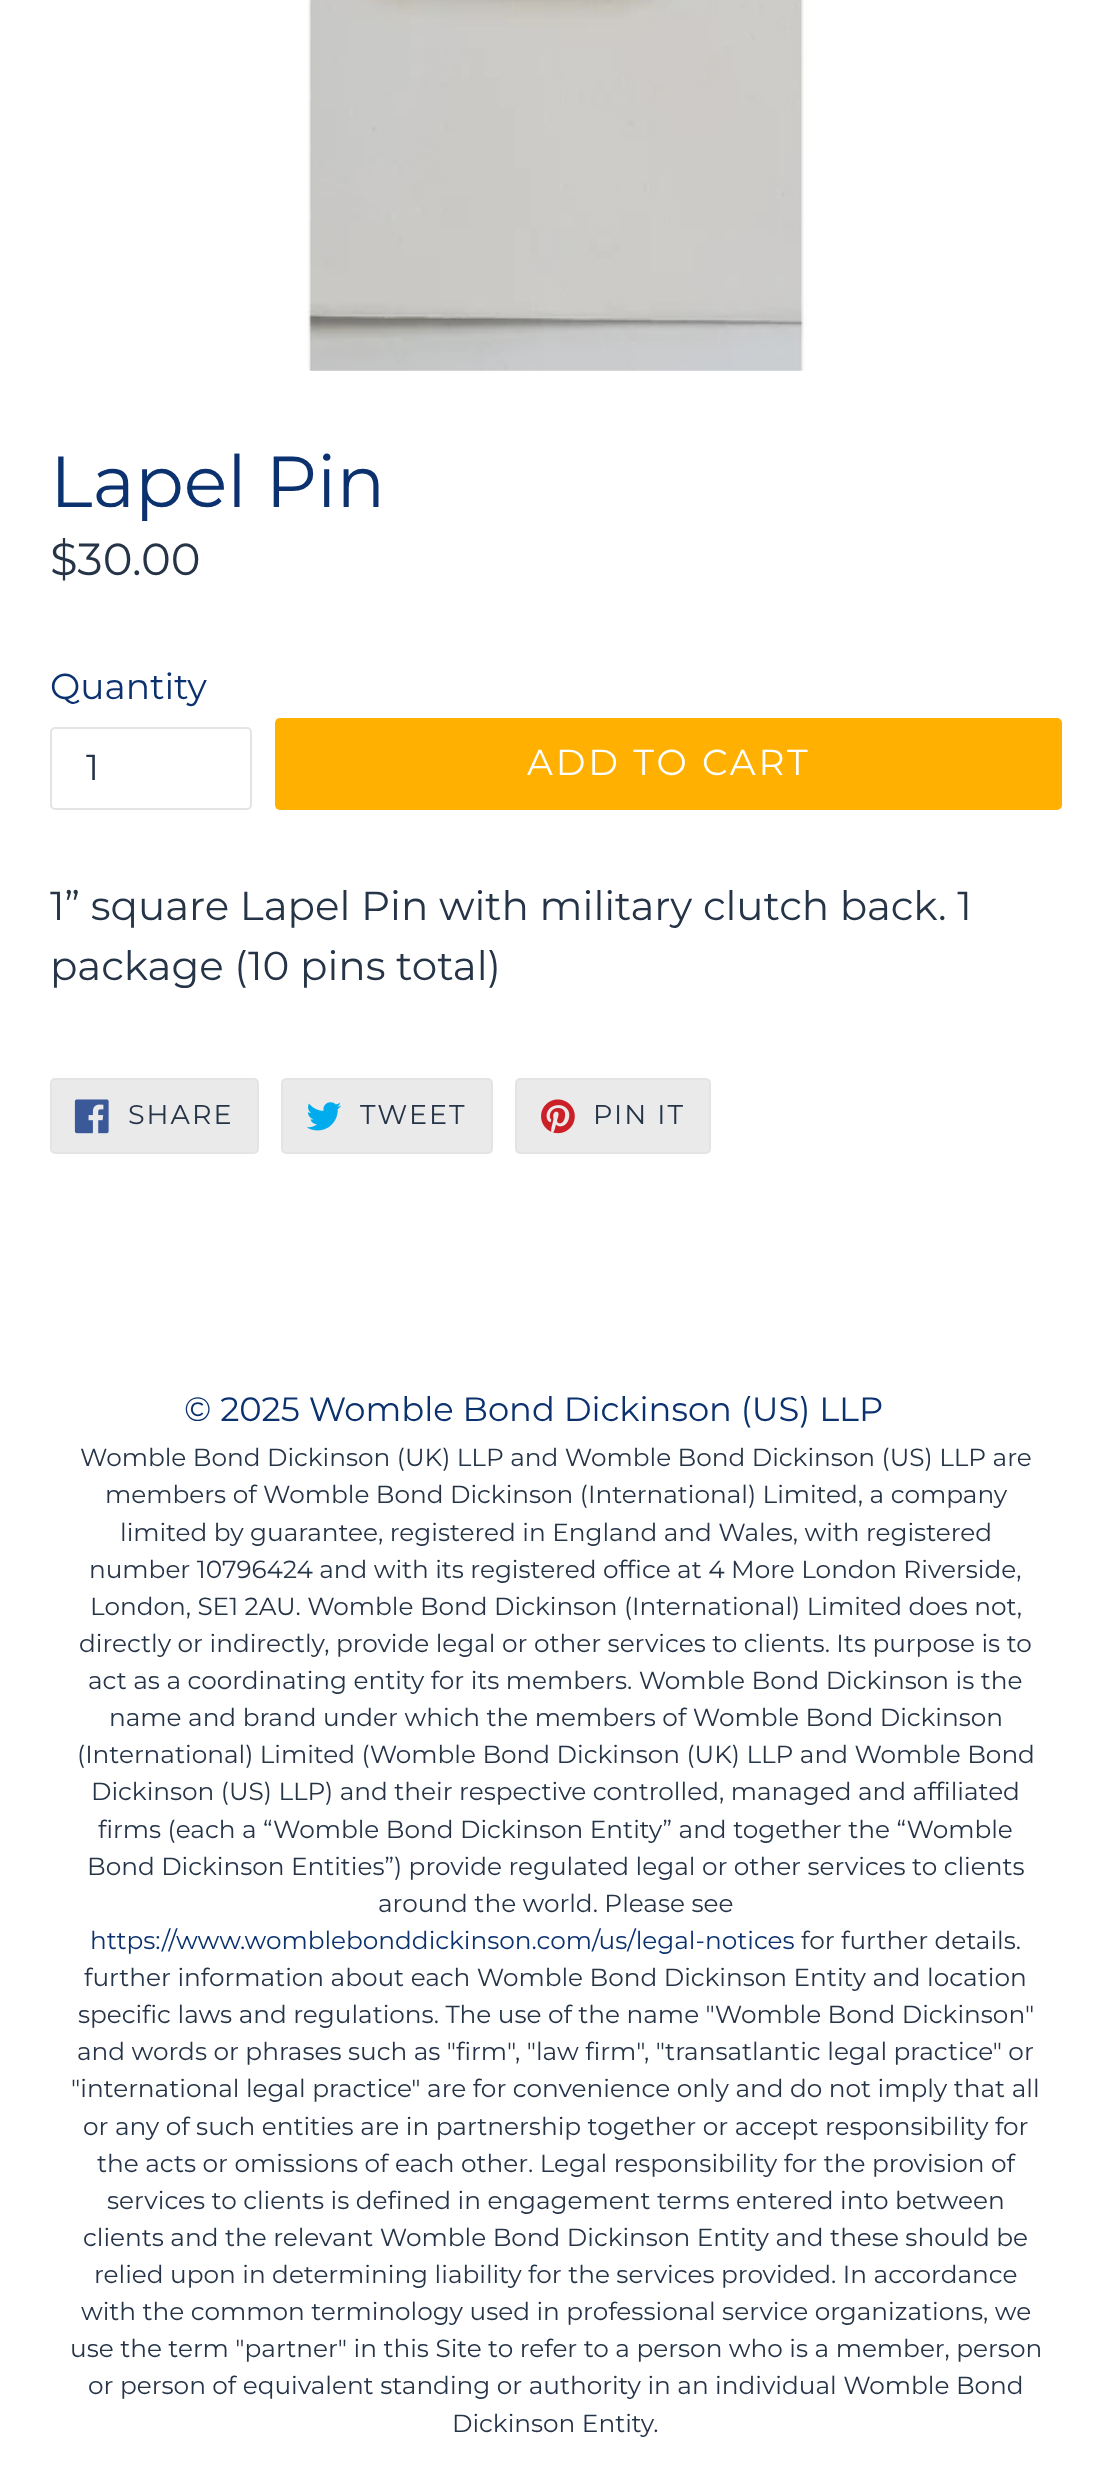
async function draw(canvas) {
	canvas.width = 1111;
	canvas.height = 2475;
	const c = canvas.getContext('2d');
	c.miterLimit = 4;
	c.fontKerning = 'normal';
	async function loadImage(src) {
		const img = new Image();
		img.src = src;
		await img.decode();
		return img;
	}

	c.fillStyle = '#fff';
	c.fillRect(0, 0, 1111, 2475);
	c.drawImage(await loadImage('img1.png'), 307, 0, 500, 371);
	c.font = '100 72px Montserrat';
	c.fillStyle = '#0b316e';
	c.fillText('Lapel Pin', 50, 507);
	c.font = '100 45px Montserrat';
	c.fillStyle = '#263448';
	c.fillText('$30.00', 50, 575);
	c.font = '100 36px Montserrat';
	c.fillStyle = '#0b316e';
	c.fillText('Quantity', 50, 699);
	c.beginPath();
	c.roundRect(51, 728, 200, 81, 4);
	c.strokeStyle = '#e4e4e4';
	c.lineWidth = 2;
	c.stroke();
	c.fillStyle = '#263448';
	c.fillText('1', 86, 780);
	c.fillStyle = '#ffb000';
	c.beginPath();
	c.roundRect(275, 718, 787, 92, 5);
	c.fill();
	c.letterSpacing = '2.9px';
	c.fillStyle = '#fff';
	c.fillText('ADD TO CART', 527, 775);
	c.letterSpacing = '0px';
	c.font = '100 40.5px Montserrat';
	c.fillStyle = '#263448';
	c.fillText('1” square Lapel Pin with military clutch back. 1', 50, 920);
	c.fillText('package (10 pins total)', 50, 980);
	c.fillStyle = '#eaeaea';
	c.beginPath();
	c.roundRect(51, 1079, 207, 74, 4);
	c.fill();
	c.stroke();
	c.drawImage(await loadImage('img2.png'), 74, 1099, 35, 35);
	c.letterSpacing = '2px';
	c.font = '100 27px Montserrat';
	c.fillStyle = '#263448';
	c.fillText('SHARE', 128, 1124);
	c.fillStyle = '#eaeaea';
	c.beginPath();
	c.roundRect(282, 1079, 210, 74, 4);
	c.fill();
	c.stroke();
	c.drawImage(await loadImage('img3.png'), 306, 1102, 35, 29);
	c.fillStyle = '#263448';
	c.fillText('TWEET', 360, 1124);
	c.fillStyle = '#eaeaea';
	c.beginPath();
	c.roundRect(516, 1079, 194, 74, 4);
	c.fill();
	c.stroke();
	c.drawImage(await loadImage('img4.png'), 541, 1099, 34, 35);
	c.fillStyle = '#263448';
	c.fillText('PIN IT', 593, 1124);
	c.letterSpacing = '0px';
	c.font = '100 33.75px Montserrat';
	c.fillStyle = '#0b316e';
	c.fillText('© 2025 Womble Bond Dickinson (US) LLP', 184, 1421);
	c.font = '100 24.75px Montserrat';
	c.fillStyle = '#263448';
	for (const [text, x, y] of [
		['Womble Bond Dickinson (UK) LLP and Womble Bond Dickinson (US) LLP are', 80, 1466],
		['members of Womble Bond Dickinson (International) Limited, a company', 105, 1503],
		['limited by guarantee, registered in England and Wales, with registered', 120, 1541],
		['number 10796424 and with its registered office at 4 More London Riverside,', 89, 1578],
		['London, SE1 2AU. Womble Bond Dickinson (International) Limited does not,', 90, 1615],
		['directly or indirectly, provide legal or other services to clients. Its purpose is to', 79, 1652],
		['act as a coordinating entity for its members. Womble Bond Dickinson is the', 88, 1689],
		['name and brand under which the members of Womble Bond Dickinson', 109, 1726],
		['(International) Limited (Womble Bond Dickinson (UK) LLP and Womble Bond', 77, 1763],
		['Dickinson (US) LLP) and their respective controlled, managed and affiliated', 91, 1800],
		['firms (each a “Womble Bond Dickinson Entity” and together the “Womble', 98, 1838],
		['Bond Dickinson Entities”) provide regulated legal or other services to clients', 87, 1875],
		['around the world. Please see', 378, 1912],
	]) {
		c.fillText(text, x, y);
	}
	c.fillStyle = '#0b316e';
	c.fillText('https://www.womblebonddickinson.com/us/legal-notices', 90, 1949);
	c.fillStyle = '#263448';
	for (const [text, x, y] of [
		['for further details.', 801, 1949],
		['further information about each Womble Bond Dickinson Entity and location', 84, 1986],
		['specific laws and regulations. The use of the name "Womble Bond Dickinson"', 78, 2023],
		['and words or phrases such as "firm", "law firm", "transatlantic legal practice" or', 77, 2060],
		['"international legal practice" are for convenience only and do not imply that all', 71, 2097],
		['or any of such entities are in partnership together or accept responsibility for', 83, 2135],
		['the acts or omissions of each other. Legal responsibility for the provision of', 97, 2172],
		['services to clients is defined in engagement terms entered into between', 107, 2209],
		['clients and the relevant Womble Bond Dickinson Entity and these should be', 83, 2246],
		['relied upon in determining liability for the services provided. In accordance', 94, 2283],
		['with the common terminology used in professional service organizations, we', 81, 2320],
		['use the term "partner" in this Site to refer to a person who is a member, person', 70, 2357],
		['or person of equivalent standing or authority in an individual Womble Bond', 88, 2394],
		['Dickinson Entity.', 452, 2432],
	]) {
		c.fillText(text, x, y);
	}
}

draw(document.querySelector('canvas'));
